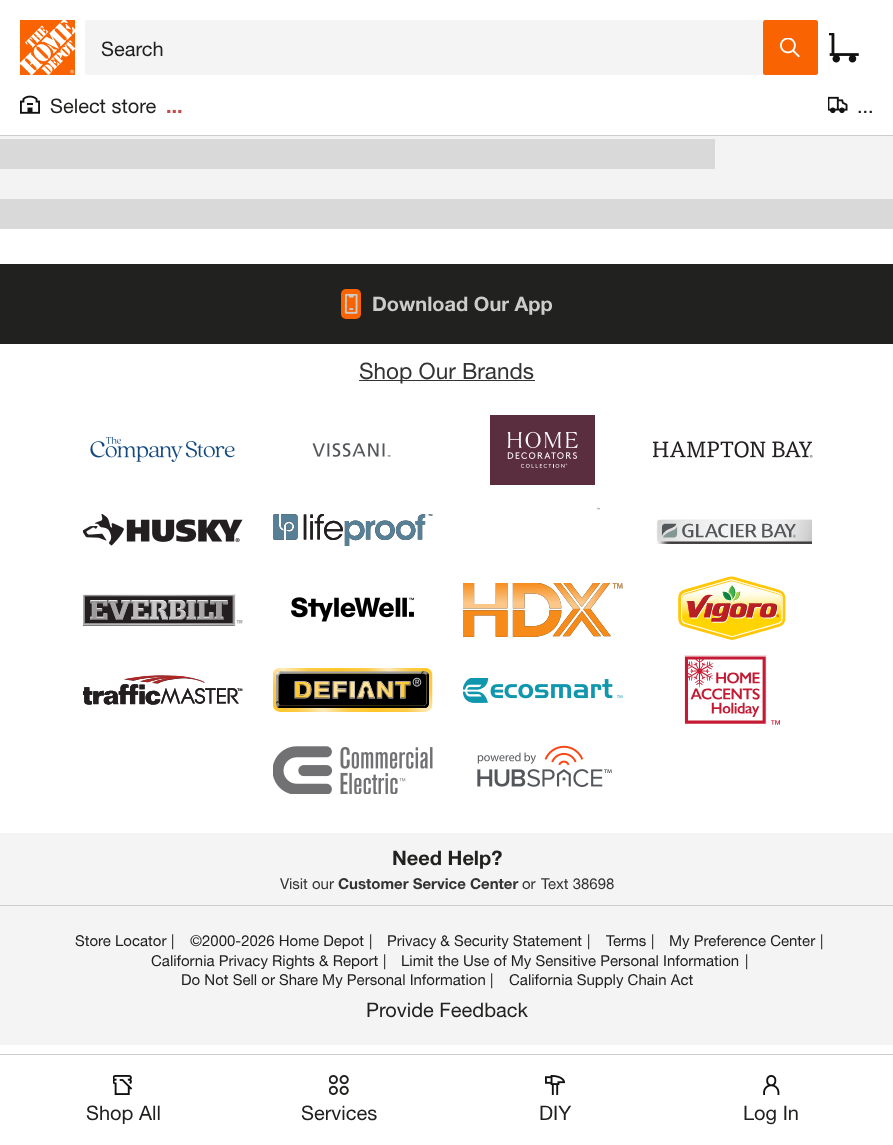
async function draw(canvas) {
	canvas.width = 893;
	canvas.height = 1145;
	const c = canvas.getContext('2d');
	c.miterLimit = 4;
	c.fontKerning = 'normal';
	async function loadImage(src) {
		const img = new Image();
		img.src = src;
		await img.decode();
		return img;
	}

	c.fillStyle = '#fff';
	c.fillRect(0, 0, 893, 1145);
	c.fillStyle = '#cccccb';
	c.fillRect(0, 135, 893, 1);
	c.drawImage(await loadImage('img1.png'), 20, 20, 55, 55);
	c.fillStyle = '#f4f4f4';
	c.beginPath();
	c.roundRect(85, 20, 733, 55, 2.5);
	c.fill();
	c.font = '20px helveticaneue';
	c.fillStyle = '#212120';
	c.fillText('Search', 101, 56);
	c.fillStyle = '#f96302';
	c.beginPath();
	c.roundRect(763, 20, 55, 55, 2.5);
	c.fill();
	c.drawImage(await loadImage('img2.png'), 780, 38, 20, 20);
	c.drawImage(await loadImage('img3.png'), 829, 33, 30, 30);
	c.drawImage(await loadImage('img4.png'), 20, 95, 20, 19);
	c.fillStyle = '#212120';
	c.fillText('Select store', 50, 113);
	c.font = 'bold 20px "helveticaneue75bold"';
	c.fillStyle = '#c64c4c';
	c.fillText('...', 166, 113);
	c.drawImage(await loadImage('img5.png'), 828, 96, 20, 18);
	c.font = '20px helveticaneue';
	c.fillStyle = '#212120';
	c.fillText('...', 857, 113);
	c.fillStyle = '#cccccb';
	c.fillRect(0, 1054, 893, 1);
	c.drawImage(await loadImage('img6.png'), 113, 1075, 20, 20);
	c.fillStyle = '#212120';
	c.fillText('Shop All', 86, 1120);
	c.drawImage(await loadImage('img7.png'), 329, 1075, 20, 20);
	c.fillText('Services', 301, 1120);
	c.drawImage(await loadImage('img8.png'), 545, 1075, 20, 20);
	c.fillText('DIY', 539, 1120);
	c.drawImage(await loadImage('img9.png'), 763, 1075, 17, 20);
	c.fillText('Log In', 743, 1120);
	for (const [x, y, w, h, color] of [
		[0, 136, 893, 63, '#f3f3f3'],
		[0, 139, 715, 30, '#d9d9d9'],
		[0, 199, 893, 30, '#d9d9d9'],
		[0, 264, 893, 80, '#212120'],
	]) {
		c.fillStyle = color;
		c.fillRect(x, y, w, h);
	}
	c.fillStyle = '#f96302';
	c.beginPath();
	c.roundRect(341, 289, 20, 30, 5);
	c.fill();
	c.drawImage(await loadImage('img10.png'), 344, 294, 14, 20);
	c.font = 'bold 20px "helveticaneue75bold"';
	c.fillStyle = '#cccccb';
	c.fillText('Download Our App', 372, 311);
	c.fillStyle = '#333';
	c.fillRect(359, 380, 176, 1);
	c.font = '22.5px helveticaneue';
	c.fillText('Shop Our Brands', 359, 379);
	c.drawImage(await loadImage('img11.png'), 90, 436, 145, 26);
	c.drawImage(await loadImage('img12.png'), 312, 443, 79, 14);
	c.drawImage(await loadImage('img13.png'), 490, 415, 105, 70);
	c.drawImage(await loadImage('img14.png'), 653, 441, 160, 17);
	c.drawImage(await loadImage('img15.png'), 596, 507, 4, 3);
	c.drawImage(await loadImage('img16.png'), 83, 514, 160, 32);
	c.drawImage(await loadImage('img17.png'), 273, 514, 160, 32);
	c.drawImage(await loadImage('img18.png'), 656, 519, 156, 25);
	c.drawImage(await loadImage('img19.png'), 83, 594, 160, 32);
	c.drawImage(await loadImage('img20.png'), 291, 597, 123, 25);
	c.drawImage(await loadImage('img21.png'), 463, 583, 160, 54);
	c.drawImage(await loadImage('img22.png'), 678, 576, 108, 64);
	c.drawImage(await loadImage('img23.png'), 83, 675, 160, 30);
	c.drawImage(await loadImage('img24.png'), 273, 668, 160, 44);
	c.drawImage(await loadImage('img25.png'), 463, 678, 160, 25);
	c.drawImage(await loadImage('img26.png'), 684, 655, 96, 70);
	c.drawImage(await loadImage('img27.png'), 273, 746, 160, 48);
	c.drawImage(await loadImage('img28.png'), 477, 745, 135, 42);
	c.fillStyle = '#f4f4f4';
	c.fillRect(0, 833, 893, 72);
	c.fillStyle = '#cccccb';
	c.fillRect(0, 905, 893, 1);
	c.font = 'bold 20px "helveticaneue75bold"';
	c.fillStyle = '#212120';
	c.fillText('Need Help?', 392, 865);
	c.font = '15px helveticaneue';
	c.fillStyle = '#333';
	c.fillText('Visit our', 280, 889);
	c.font = 'bold 15px "helveticaneue75bold"';
	c.fillText('Customer Service Center', 338, 889);
	c.font = '15px helveticaneue';
	c.fillText('or', 522, 889);
	c.fillText('Text 38698', 541, 889);
	c.fillStyle = '#f4f4f4';
	c.fillRect(0, 906, 893, 139);
	c.fillStyle = '#212120';
	for (const [text, x, y] of [
		['Store Locator', 75, 946],
		['|', 171, 946],
		['©2000-2026 Home Depot', 190, 946],
		['|', 369, 946],
		['Privacy & Security Statement', 387, 946],
		['|', 587, 946],
		['Terms', 606, 946],
		['|', 651, 946],
		['My Preference Center', 669, 946],
		['|', 820, 946],
		['California Privacy Rights & Report', 151, 966],
		['|', 383, 966],
		['Limit the Use of My Sensitive Personal Information', 401, 966],
		['|', 745, 966],
		['Do Not Sell or Share My Personal Information', 181, 985],
		['|', 490, 985],
		['California Supply Chain Act', 509, 985],
	]) {
		c.fillText(text, x, y);
	}
	c.font = '20px helveticaneue';
	c.fillText('Provide Feedback', 366, 1017);
}

draw(document.querySelector('canvas'));
